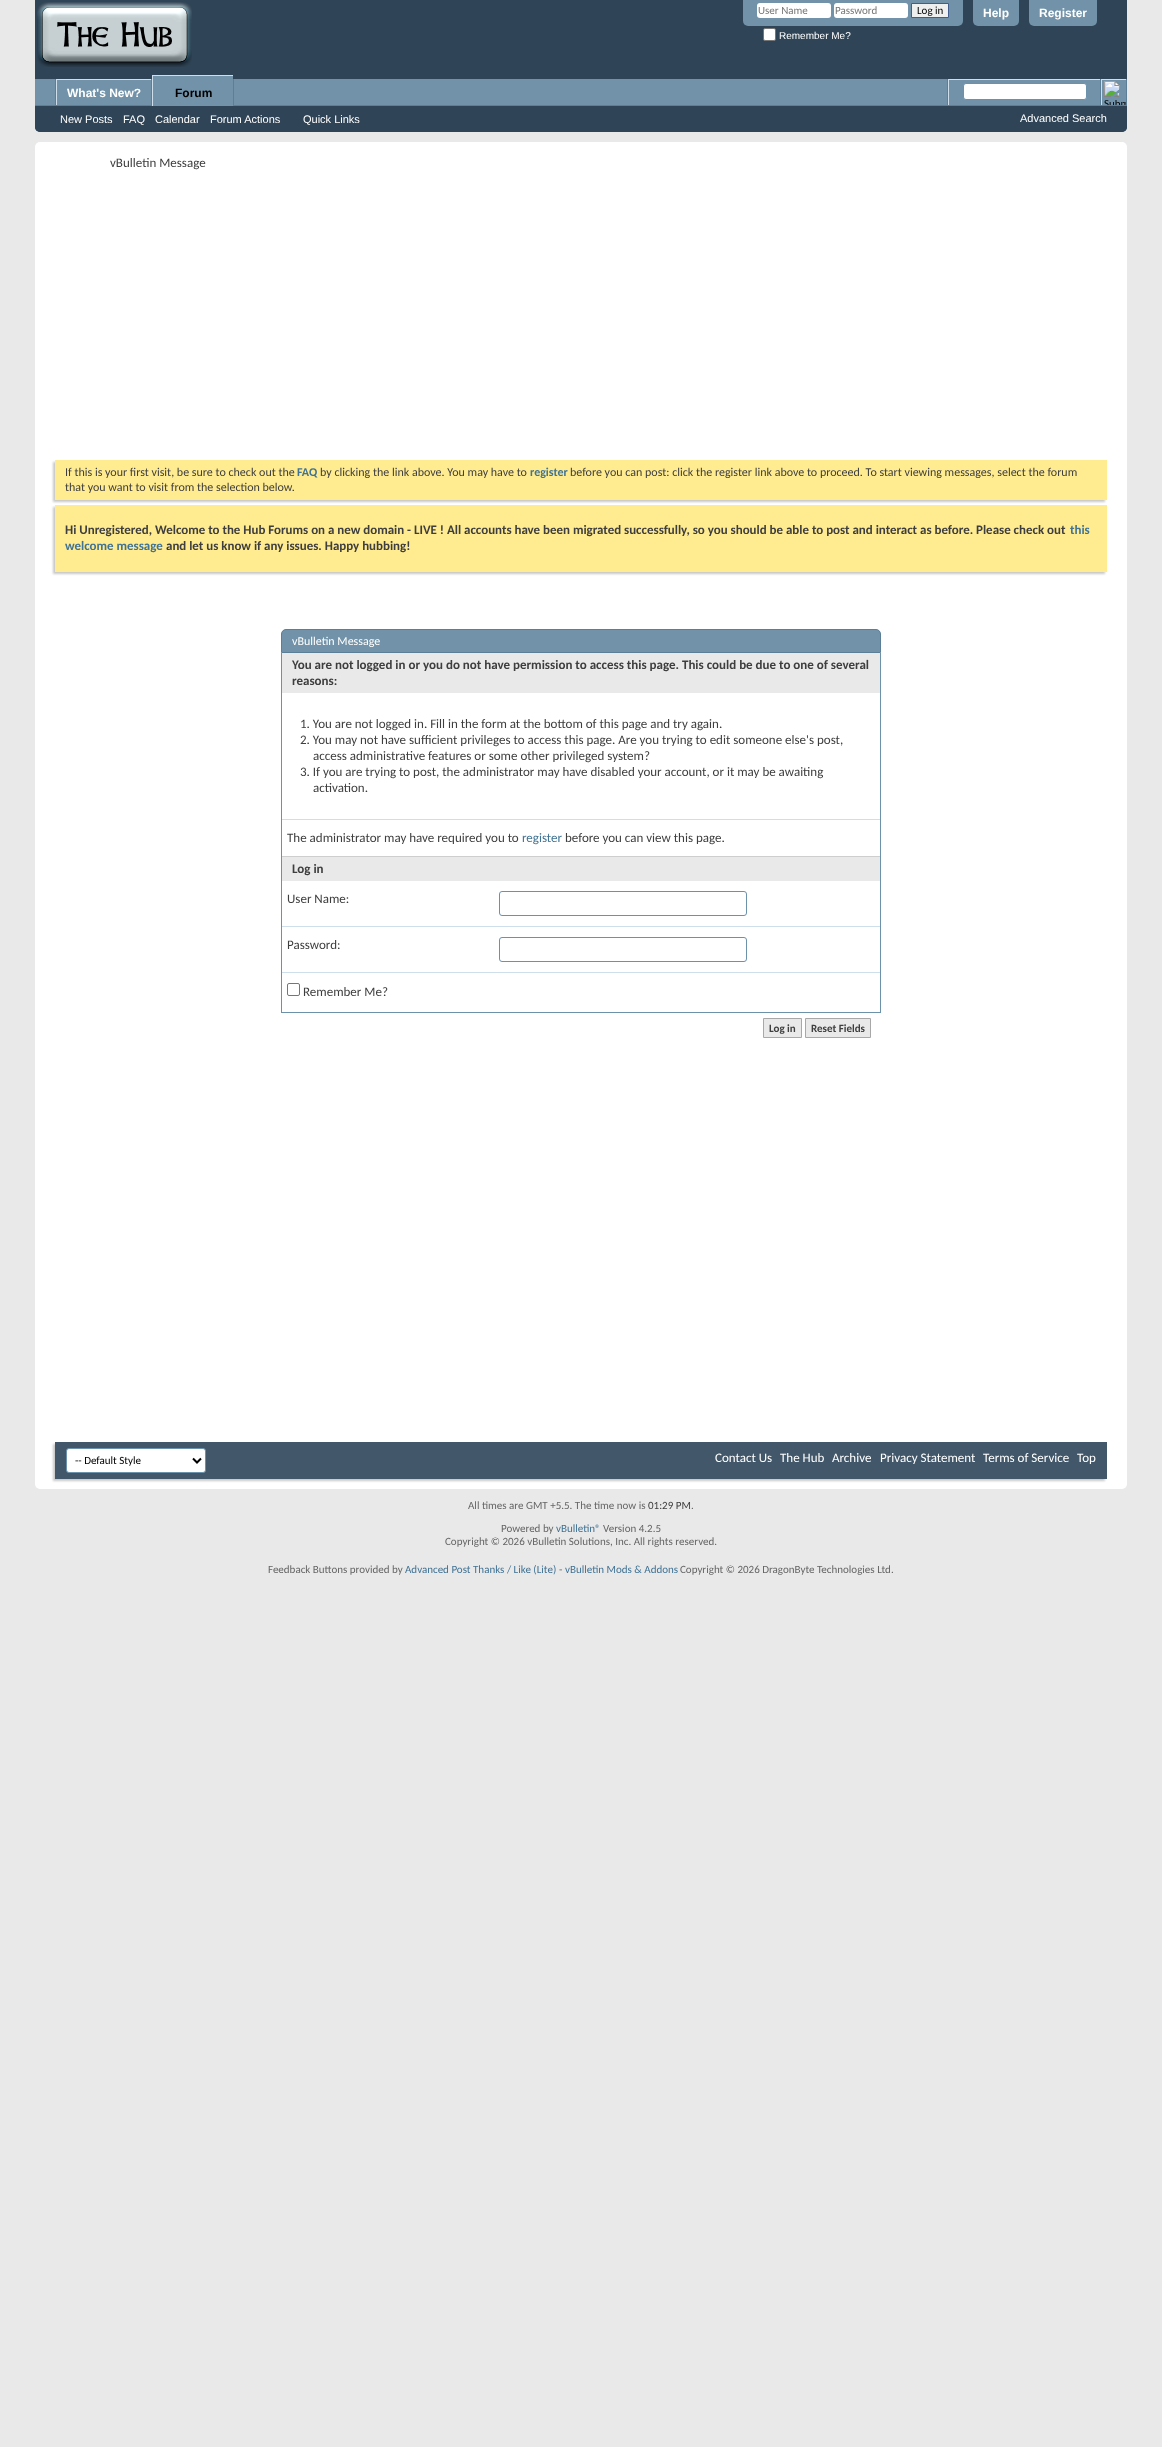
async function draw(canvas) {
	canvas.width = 1162;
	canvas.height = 2447;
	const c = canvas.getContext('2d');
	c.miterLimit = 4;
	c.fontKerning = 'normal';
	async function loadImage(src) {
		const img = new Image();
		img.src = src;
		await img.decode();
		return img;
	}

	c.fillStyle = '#e9e9e9';
	c.fillRect(0, 0, 1162, 2447);
	c.fillStyle = '#2f4456';
	c.beginPath();
	c.roundRect(35, 0, 1092, 132, [0, 0, 5, 5]);
	c.fill();
	c.drawImage(await loadImage('img1.png'), 37, 2, 155, 65);
	c.fillStyle = '#7192a8';
	c.beginPath();
	c.roundRect(743, 0, 220, 26, [0, 0, 5, 5]);
	c.fill();
	c.fillStyle = '#fff';
	c.beginPath();
	c.roundRect(757, 3, 74, 15, 3);
	c.fill();
	c.font = '11px Carlito';
	c.fillStyle = '#777';
	c.fillText('User Name', 758, 14);
	c.fillStyle = '#fff';
	c.beginPath();
	c.roundRect(834, 3, 74, 15, 3);
	c.fill();
	c.fillStyle = '#777';
	c.fillText('Password', 835, 14);
	c.fillStyle = '#efefef';
	c.beginPath();
	c.rect(911.5, 3.5, 37, 14);
	c.fill();
	c.strokeStyle = '#415d8d';
	c.stroke();
	c.fillStyle = '#000';
	c.fillText('Log in', 917, 14);
	c.fillStyle = '#fff';
	c.beginPath();
	c.roundRect(763.5, 28.5, 12, 12, 1.5);
	c.fill();
	c.strokeStyle = '#767676';
	c.stroke();
	c.font = '10px Liberation Sans';
	c.fillText('Remember Me?', 779, 39);
	c.fillStyle = '#7192a8';
	c.beginPath();
	c.roundRect(973, 0, 46, 26, [0, 0, 5, 5]);
	c.fill();
	c.font = 'bold 12px Liberation Sans';
	c.fillStyle = '#fff';
	c.fillText('Help', 983, 17);
	c.fillStyle = '#7192a8';
	c.beginPath();
	c.roundRect(1029, 0, 68, 26, [0, 0, 5, 5]);
	c.fill();
	c.fillStyle = '#fff';
	c.fillText('Register', 1039, 17);
	c.fillStyle = '#2f4456';
	c.beginPath();
	c.roundRect(35, 79, 1092, 53, [0, 0, 5, 5]);
	c.fill();
	for (const [x, y, w, h, color] of [
		[35, 79, 1091, 26, '#7192a8'],
		[151, 79, 1, 27, '#5a7f97'],
		[55, 79, 1, 27, '#5a7f97'],
		[56, 79, 95, 1, '#cedfeb'],
		[56, 79, 1, 27, '#cedfeb'],
	]) {
		c.fillStyle = color;
		c.fillRect(x, y, w, h);
	}
	c.fillStyle = '#fff';
	c.fillText('What\'s New?', 67, 97);
	for (const [x, y, w, h, color] of [
		[233, 79, 1, 26, '#5a7f97'],
		[35, 105, 1092, 1, '#5a7f97'],
		[153, 76, 80, 30, '#7192a8'],
		[152, 75, 81, 1, '#cedfeb'],
		[152, 75, 1, 31, '#cedfeb'],
	]) {
		c.fillStyle = color;
		c.fillRect(x, y, w, h);
	}
	c.fillStyle = '#000';
	c.fillText('Forum', 175, 97);
	c.font = '11px Liberation Sans';
	c.fillStyle = '#fff';
	for (const [text, x, y] of [
		['New Posts', 60, 123],
		['FAQ', 123, 123],
		['Calendar', 155, 123],
		['Forum Actions', 210, 123],
		['Quick Links', 303, 123],
	]) {
		c.fillText(text, x, y);
	}
	for (const [x, y, w, h, color] of [
		[947, 79, 1, 26, '#5a7f97'],
		[948, 79, 152, 1, '#cedfeb'],
		[948, 79, 1, 26, '#cedfeb'],
	]) {
		c.fillStyle = color;
		c.fillRect(x, y, w, h);
	}
	c.fillStyle = '#fff';
	c.beginPath();
	c.roundRect(963.5, 83.5, 123, 16, 2.5);
	c.fill();
	c.strokeStyle = '#6b91ab';
	c.stroke();
	for (const [x, y, w, h, color] of [
		[1126, 79, 1, 26, '#5a7f97'],
		[1100, 79, 1, 26, '#5a7f97'],
		[1101, 79, 25, 1, '#cedfeb'],
		[1101, 79, 1, 26, '#cedfeb'],
	]) {
		c.fillStyle = color;
		c.fillRect(x, y, w, h);
	}
	c.drawImage(await loadImage('img2.png'), 1104, 81, 22, 24);
	c.fillStyle = '#fff';
	c.fillText('Advanced Search', 1020, 122);
	c.beginPath();
	c.roundRect(35, 142, 1092, 1347, 5);
	c.fill();
	c.font = '13px Carlito';
	c.fillStyle = '#3e3e3e';
	c.fillText('vBulletin Message', 110, 167);
	c.fillStyle = '#c8c8c8';
	c.filter = 'blur(1px)';
	c.beginPath();
	c.rect(53, 462, 1052, 40);
	c.fill();
	c.filter = 'none';
	c.fillStyle = '#ffeb90';
	c.fillRect(55, 460, 1052, 40);
	c.font = '12px Carlito';
	c.fillStyle = '#3e3e3e';
	c.fillText('If this is your first visit, be sure to check out the', 65, 476);
	c.font = 'bold 12px Carlito';
	c.fillStyle = '#417394';
	c.fillText('FAQ', 297, 476);
	c.font = '12px Carlito';
	c.fillStyle = '#3e3e3e';
	c.fillText('by clicking the link above. You may have to', 320, 476);
	c.font = 'bold 12px Carlito';
	c.fillStyle = '#417394';
	c.fillText('register', 530, 476);
	c.font = '12px Carlito';
	c.fillStyle = '#3e3e3e';
	c.fillText('before you can post: click the register link above to proceed. To start viewing messages, select the forum', 570, 476);
	c.fillText('that you want to visit from the selection below.', 65, 491);
	c.fillStyle = '#c8c8c8';
	c.filter = 'blur(1px)';
	c.beginPath();
	c.rect(53, 507, 1052, 67);
	c.fill();
	c.filter = 'none';
	c.fillStyle = '#ffeb90';
	c.fillRect(55, 505, 1052, 67);
	c.font = 'bold 12.95px Carlito';
	c.fillStyle = '#3e3e3e';
	c.fillText('Hi Unregistered, Welcome to the Hub Forums on a new domain - LIVE ! All accounts have been migrated successfully, so you should be able to post and interact as before. Please check out', 65, 534);
	c.fillStyle = '#417394';
	c.fillText('this', 1070, 534);
	c.fillText('welcome message', 65, 550);
	c.fillStyle = '#3e3e3e';
	c.fillText('and let us know if any issues. Happy hubbing!', 166, 550);
	c.fillStyle = '#7192a8';
	c.beginPath();
	c.roundRect(281.5, 629.5, 599, 23, [4.5, 4.5, 0, 0]);
	c.fill();
	c.strokeStyle = '#5a7f97';
	c.stroke();
	c.font = '12px Carlito';
	c.fillStyle = '#fff';
	c.fillText('vBulletin Message', 292, 645);
	for (const [x, y, w, h, color] of [
		[880, 653, 1, 360, '#6b91ab'],
		[281, 1012, 600, 1, '#6b91ab'],
		[281, 653, 1, 360, '#6b91ab'],
		[282, 653, 598, 40, '#e9e9e9'],
	]) {
		c.fillStyle = color;
		c.fillRect(x, y, w, h);
	}
	c.font = 'bold 13px Carlito';
	c.fillStyle = '#3e3e3e';
	c.fillText('You are not logged in or you do not have permission to access this page. This could be due to one of several', 292, 669);
	c.fillText('reasons:', 292, 685);
	c.font = '13px Carlito';
	for (const [text, x, y] of [
		['1. You are not logged in. Fill in the form at the bottom of this page and try again.', 300, 728],
		['2. You may not have sufficient privileges to access this page. Are you trying to edit someone else\'s post,', 300, 744],
		['access administrative features or some other privileged system?', 313, 760],
		['3. If you are trying to post, the administrator may have disabled your account, or it may be awaiting', 300, 776],
		['activation.', 313, 792],
	]) {
		c.fillText(text, x, y);
	}
	c.fillStyle = '#cedfeb';
	c.fillRect(282, 819, 598, 1);
	c.fillStyle = '#3e3e3e';
	c.fillText('The administrator may have required you to', 287, 842);
	c.fillStyle = '#417394';
	c.fillText('register', 522, 842);
	c.fillStyle = '#3e3e3e';
	c.fillText('before you can view this page.', 565, 842);
	c.fillStyle = '#e9e9e9';
	c.fillRect(282, 857, 598, 24);
	c.fillStyle = '#cecece';
	c.fillRect(282, 856, 598, 1);
	c.font = 'bold 13px Carlito';
	c.fillStyle = '#3e3e3e';
	c.fillText('Log in', 292, 873);
	c.font = '13px Carlito';
	c.fillText('User Name:', 287, 903);
	c.beginPath();
	c.roundRect(499.5, 891.5, 247, 24, 2.5);
	c.strokeStyle = '#6b91ab';
	c.stroke();
	c.fillStyle = '#cedfeb';
	c.fillRect(282, 926, 598, 1);
	c.fillStyle = '#3e3e3e';
	c.fillText('Password:', 287, 949);
	c.beginPath();
	c.roundRect(499.5, 937.5, 247, 24, 2.5);
	c.stroke();
	c.fillStyle = '#cedfeb';
	c.fillRect(282, 972, 598, 1);
	c.beginPath();
	c.roundRect(287.5, 983.5, 12, 12, 1.5);
	c.strokeStyle = '#767676';
	c.stroke();
	c.fillStyle = '#3e3e3e';
	c.fillText('Remember Me?', 303, 996);
	c.fillStyle = '#e9e9e9';
	c.beginPath();
	c.rect(763.5, 1018.5, 38, 19);
	c.fill();
	c.strokeStyle = '#a8a8a8';
	c.stroke();
	c.font = 'bold 11px Carlito';
	c.fillStyle = '#3e3e3e';
	c.fillText('Log in', 769, 1032);
	c.fillStyle = '#e9e9e9';
	c.beginPath();
	c.rect(805.5, 1018.5, 65, 19);
	c.fill();
	c.stroke();
	c.fillStyle = '#3e3e3e';
	c.fillText('Reset Fields', 811, 1032);
	c.fillStyle = '#c8c8c8';
	c.filter = 'blur(1px)';
	c.beginPath();
	c.rect(53, 1444, 1052, 37);
	c.fill();
	c.filter = 'none';
	c.fillStyle = '#425769';
	c.fillRect(55, 1442, 1052, 37);
	c.fillStyle = '#fff';
	c.beginPath();
	c.roundRect(66.5, 1448.5, 139, 24, 2.5);
	c.fill();
	c.strokeStyle = '#6b91ab';
	c.stroke();
	c.beginPath();
	c.moveTo(193, 1458.5);
	c.lineTo(197, 1462.5);
	c.lineTo(201, 1458.5);
	c.strokeStyle = '#000';
	c.lineWidth = 2;
	c.stroke();
	c.font = '11px Carlito';
	c.fillStyle = '#000';
	c.fillText('-- Default Style', 75, 1464);
	c.font = '13px Carlito';
	c.fillStyle = '#fff';
	for (const [text, x, y] of [
		['Contact Us', 715, 1462],
		['The Hub', 780, 1462],
		['Archive', 832, 1462],
		['Privacy Statement', 880, 1462],
		['Terms of Service', 983, 1462],
		['Top', 1077, 1462],
	]) {
		c.fillText(text, x, y);
	}
	c.font = '11px Carlito';
	c.fillStyle = '#666';
	c.fillText('All times are GMT +5.5. The time now is', 468, 1509);
	c.fillStyle = '#3e3e3e';
	c.fillText('01:29 PM', 648, 1509);
	c.fillStyle = '#666';
	c.fillText('.', 691, 1509);
	c.fillText('Powered by', 501, 1532);
	c.fillStyle = '#417394';
	c.fillText('vBulletin®', 556, 1532);
	c.fillStyle = '#666';
	for (const [text, x, y] of [
		['Version 4.2.5', 603, 1532],
		['Copyright © 2026 vBulletin Solutions, Inc. All rights reserved.', 445, 1545],
		['Feedback Buttons provided by', 268, 1573],
	]) {
		c.fillText(text, x, y);
	}
	c.fillStyle = '#417394';
	c.fillText('Advanced Post Thanks / Like (Lite)', 405, 1573);
	c.fillStyle = '#666';
	c.fillText('-', 559, 1573);
	c.fillStyle = '#417394';
	c.fillText('vBulletin Mods & Addons', 565, 1573);
	c.fillStyle = '#666';
	c.fillText('Copyright © 2026 DragonByte Technologies Ltd.', 680, 1573);
}

draw(document.querySelector('canvas'));
